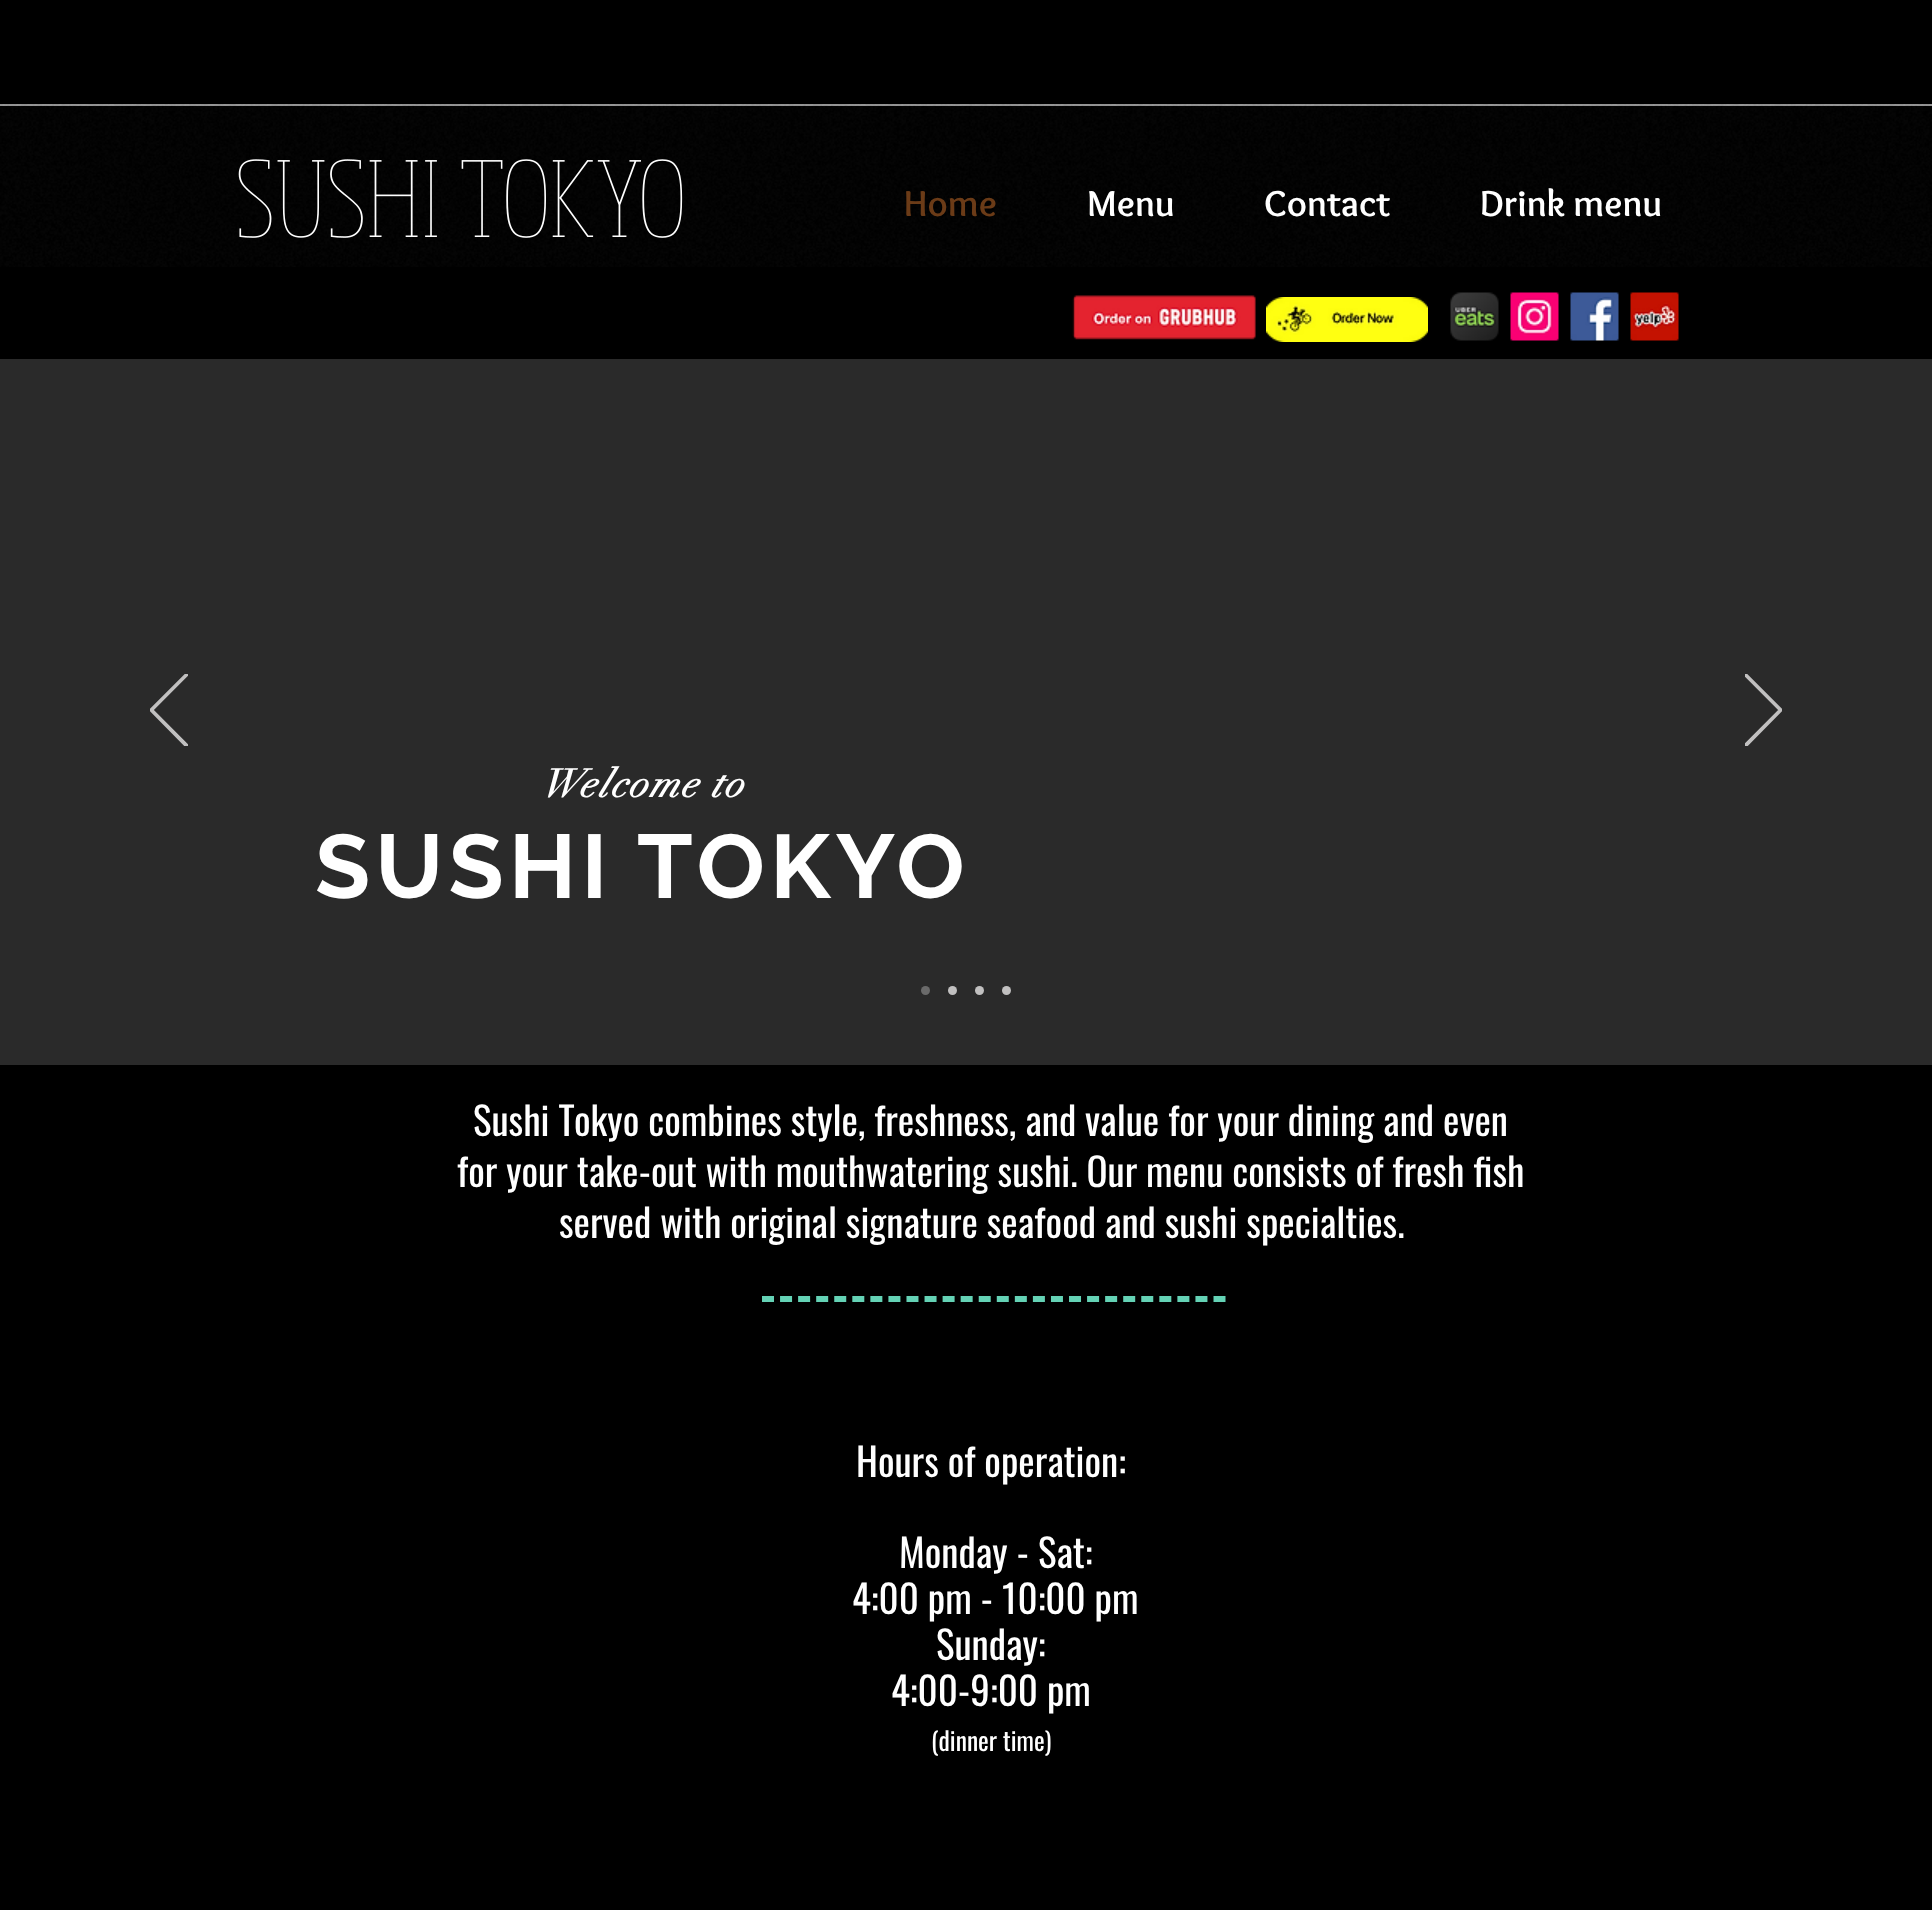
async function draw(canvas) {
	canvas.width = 1932;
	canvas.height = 1910;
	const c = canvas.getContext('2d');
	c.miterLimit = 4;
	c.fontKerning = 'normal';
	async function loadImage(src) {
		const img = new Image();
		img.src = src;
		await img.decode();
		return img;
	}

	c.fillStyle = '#000';
	c.fillRect(0, 0, 1932, 1910);
	c.fillStyle = '#979797';
	c.fillRect(0, 104, 1932, 2);
	c.drawImage(await loadImage('img1.png'), 0, 104, 1932, 163);
	c.drawImage(await loadImage('img2.png'), 238, 159, 445, 79);
	c.font = 'bold 37.5px Overlock';
	c.fillStyle = '#6b3b17';
	c.fillText('Home', 904, 216);
	c.fillStyle = '#fff';
	for (const [text, x, y] of [
		['Menu', 1087, 216],
		['Contact', 1264, 216],
		['Drink menu', 1480, 216],
	]) {
		c.fillText(text, x, y);
	}
	c.drawImage(await loadImage('img3.png'), 1072, 295, 184, 45);
	c.drawImage(await loadImage('img4.png'), 1266, 297, 162, 45);
	c.drawImage(await loadImage('img5.png'), 1450, 292, 49, 49);
	c.drawImage(await loadImage('img6.png'), 1510, 292, 49, 49);
	c.drawImage(await loadImage('img7.png'), 1570, 292, 49, 49);
	c.drawImage(await loadImage('img8.png'), 1630, 292, 49, 49);
	c.fillStyle = '#2a2a2a';
	c.fillRect(0, 359, 1932, 706);
	c.fillStyle = '#c1c0c0';
	c.beginPath();
	c.moveTo(186, 746);
	c.lineTo(150, 710);
	c.lineTo(186, 674);
	c.lineTo(187, 675);
	c.lineTo(152, 710);
	c.lineTo(187, 745);
	c.closePath();
	c.fill();
	c.save();
	c.beginPath();
	c.rect(150, 674, 38, 72);
	c.clip();
	c.beginPath();
	c.moveTo(186, 746.5);
	c.lineTo(150, 710);
	c.lineTo(186, 674);
	c.lineTo(187.5, 675);
	c.lineTo(152.5, 710);
	c.lineTo(187.5, 745);
	c.closePath();
	c.strokeStyle = '#c1c0c0';
	c.lineWidth = 1.8;
	c.stroke();
	c.restore();
	c.beginPath();
	c.moveTo(1746, 746);
	c.lineTo(1782, 710);
	c.lineTo(1746, 674);
	c.lineTo(1745, 675);
	c.lineTo(1780, 710);
	c.lineTo(1745, 745);
	c.closePath();
	c.fill();
	c.save();
	c.beginPath();
	c.rect(1745, 674, 37, 72);
	c.clip();
	c.beginPath();
	c.moveTo(1746, 746.5);
	c.lineTo(1782, 710);
	c.lineTo(1746, 674);
	c.lineTo(1744.5, 675);
	c.lineTo(1779.5, 710);
	c.lineTo(1744.5, 745);
	c.closePath();
	c.strokeStyle = '#c1c0c0';
	c.lineWidth = 1.8;
	c.stroke();
	c.restore();
	c.letterSpacing = '2px';
	c.font = 'italic bold 39px didot';
	c.fillStyle = '#fff';
	c.fillText('Welcome to', 541, 797);
	c.letterSpacing = '5.4px';
	c.font = 'bold 90px Raleway';
	c.fillText('SUSHI TOKYO', 315, 898);
	c.fillStyle = '#6a6a6a';
	c.beginPath();
	c.arc(925.5, 990.5, 4.5, 0, 2 * Math.PI);
	c.fill();
	c.fillStyle = '#c1c0c0';
	c.beginPath();
	c.arc(952.5, 990.5, 4.5, 0, 2 * Math.PI);
	c.fill();
	c.beginPath();
	c.arc(979.5, 990.5, 4.5, 0, 2 * Math.PI);
	c.fill();
	c.beginPath();
	c.arc(1006.5, 990.5, 4.5, 0, 2 * Math.PI);
	c.fill();
	c.letterSpacing = '0px';
	c.font = '39px Oswald';
	c.fillStyle = '#fff';
	for (const [text, x, y] of [
		['Sushi Tokyo combines style, freshness, and value for your dining and even', 473, 1136],
		['for your take-out with mouthwatering sushi. Our menu consists of fresh fish', 457, 1187],
		['served with original signature seafood and sushi specialties.', 559, 1238],
		['Hours of operation:', 856, 1477],
		['Monday - Sat:', 899, 1568],
		['4:00 pm - 10:00 pm', 852, 1614],
		['Sunday:', 936, 1660],
		['4:00-9:00 pm', 891, 1706],
	]) {
		c.fillText(text, x, y);
	}
	c.font = '25.5px Oswald';
	c.fillText('(dinner time)', 931, 1751);
	c.beginPath();
	c.moveTo(762, 1299);
	c.lineTo(1225.5, 1299);
	c.strokeStyle = '#64d2b5';
	c.lineWidth = 6;
	c.setLineDash([12, 6.06]);
	c.stroke();
}

draw(document.querySelector('canvas'));
